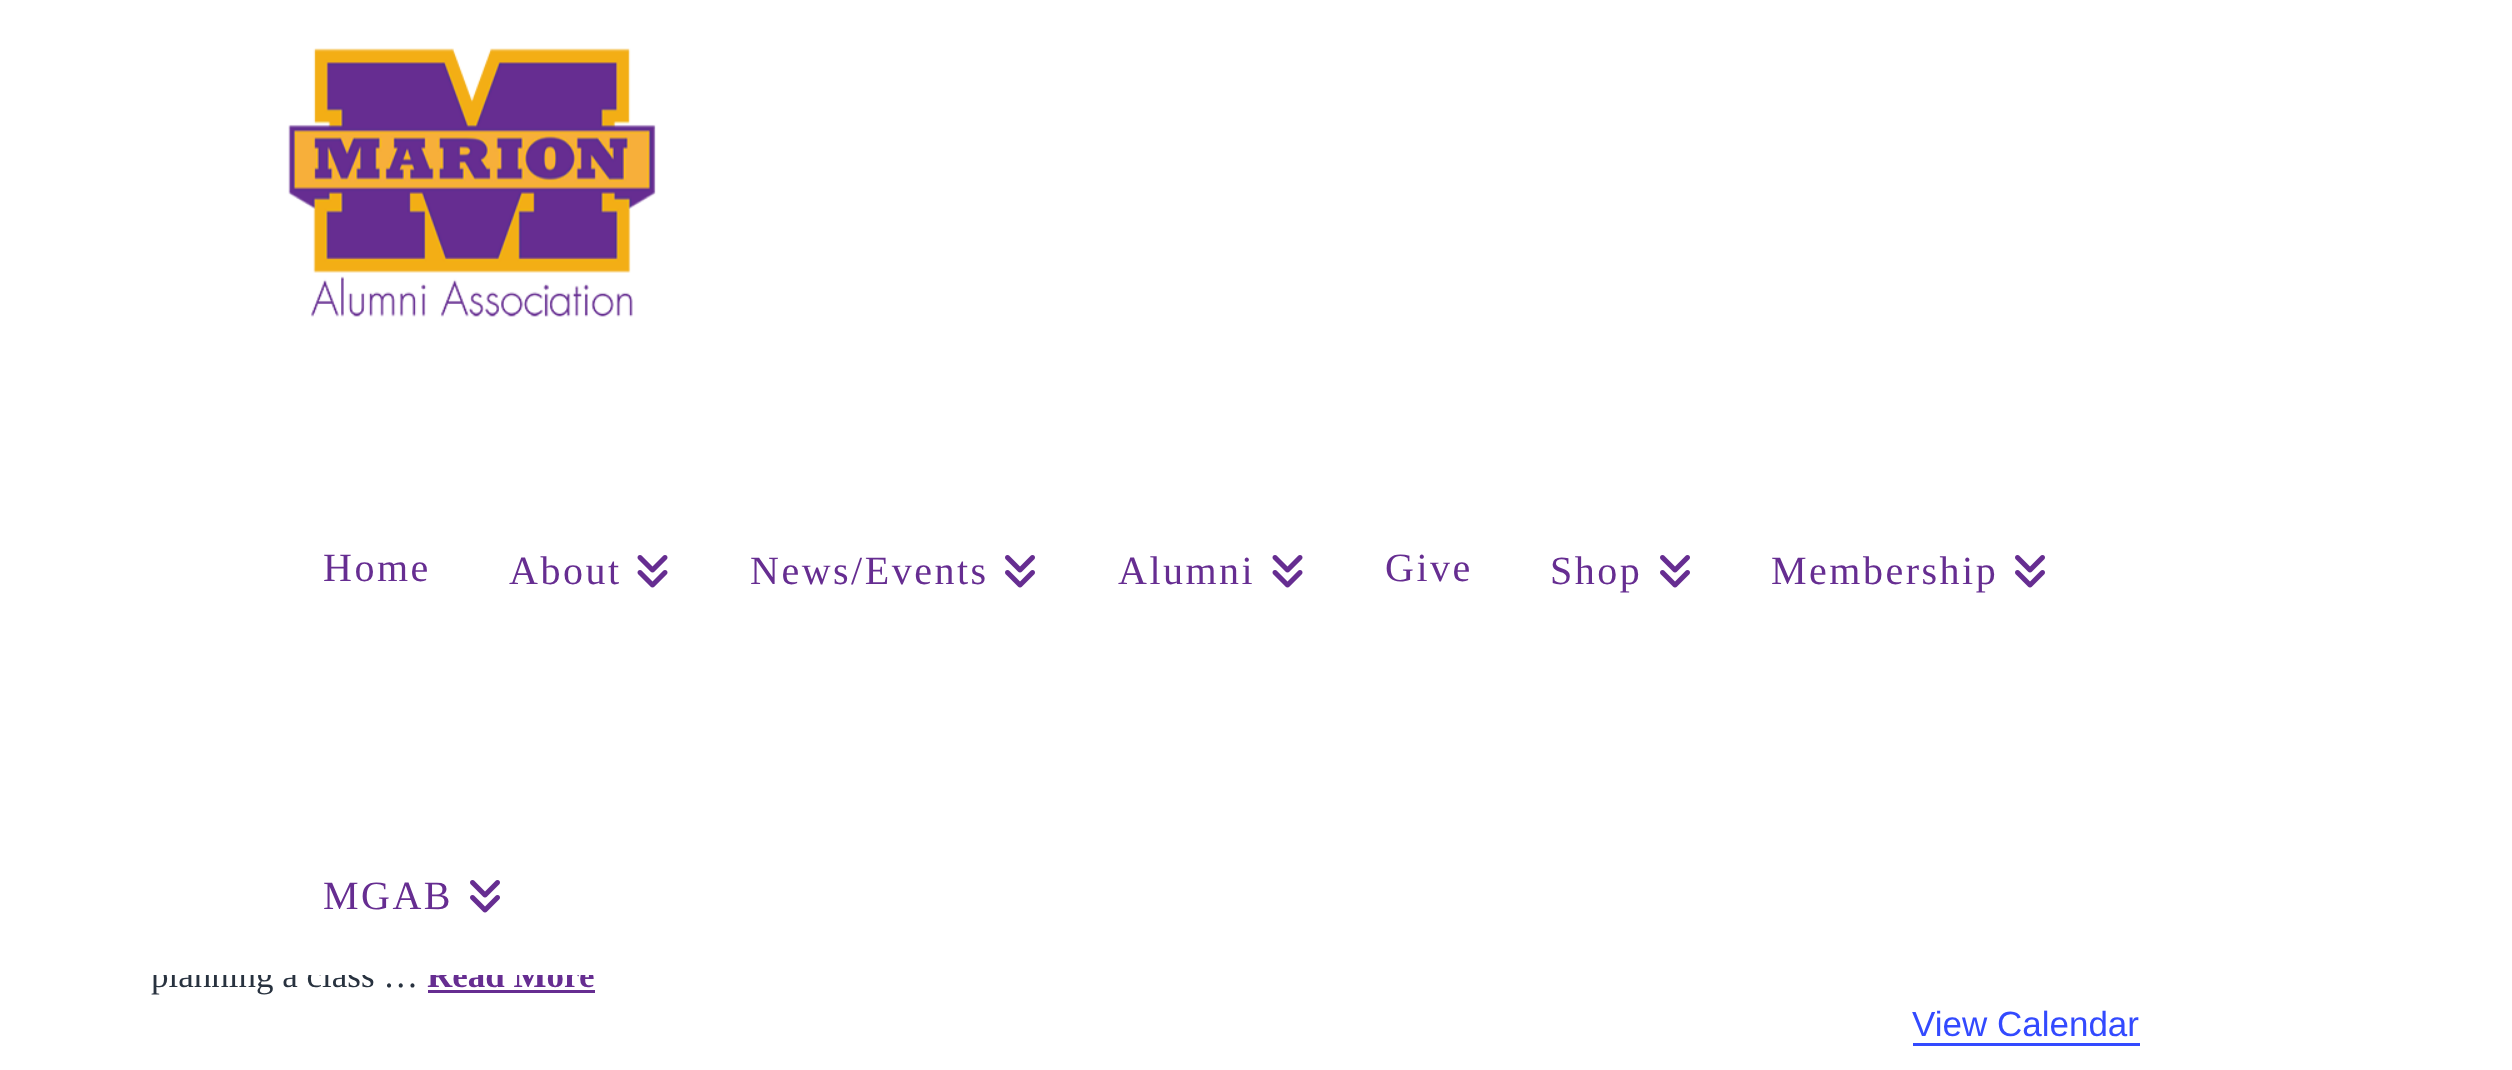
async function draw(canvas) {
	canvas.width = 2512;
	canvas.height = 1070;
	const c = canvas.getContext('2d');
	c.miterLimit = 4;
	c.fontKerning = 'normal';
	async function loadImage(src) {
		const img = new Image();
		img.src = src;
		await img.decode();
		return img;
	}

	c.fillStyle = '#fff';
	c.fillRect(0, 0, 2512, 1070);
	c.font = '35px Liberation Serif';
	c.fillStyle = '#28323f';
	c.fillText('planning a class …', 151, 987);
	c.font = 'bold 35px Liberation Serif';
	c.fillStyle = '#662d91';
	c.fillText('Read More', 427, 987);
	c.fillStyle = '#fff';
	c.fillRect(151, 962, 443, 13);
	c.drawImage(await loadImage('img1.png'), 288, 48, 368, 269);
	c.letterSpacing = '2.5px';
	c.font = '40px Liberation Serif';
	c.fillStyle = '#662d91';
	c.fillText('Home', 323, 581);
	c.fillText('About', 509, 584);
	c.drawImage(await loadImage('img2.png'), 637, 555, 31, 33);
	c.fillText('News/Events', 750, 584);
	c.drawImage(await loadImage('img3.png'), 1005, 555, 30, 33);
	c.fillText('Alumni', 1118, 584);
	c.drawImage(await loadImage('img2.png'), 1272, 555, 31, 33);
	c.fillText('Give', 1385, 581);
	c.fillText('Shop', 1550, 584);
	c.drawImage(await loadImage('img3.png'), 1660, 555, 30, 33);
	c.fillText('Membership', 1771, 584);
	c.drawImage(await loadImage('img3.png'), 2015, 555, 30, 33);
	c.fillText('MGAB', 323, 909);
	c.drawImage(await loadImage('img3.png'), 470, 880, 30, 33);
	c.fillRect(428, 990, 167, 3);
	c.letterSpacing = '0px';
	c.font = '35px Liberation Sans';
	c.fillStyle = '#334aff';
	c.fillText('View Calendar', 1912, 1036);
	c.fillRect(1913, 1043, 227, 3);
}

draw(document.querySelector('canvas'));
